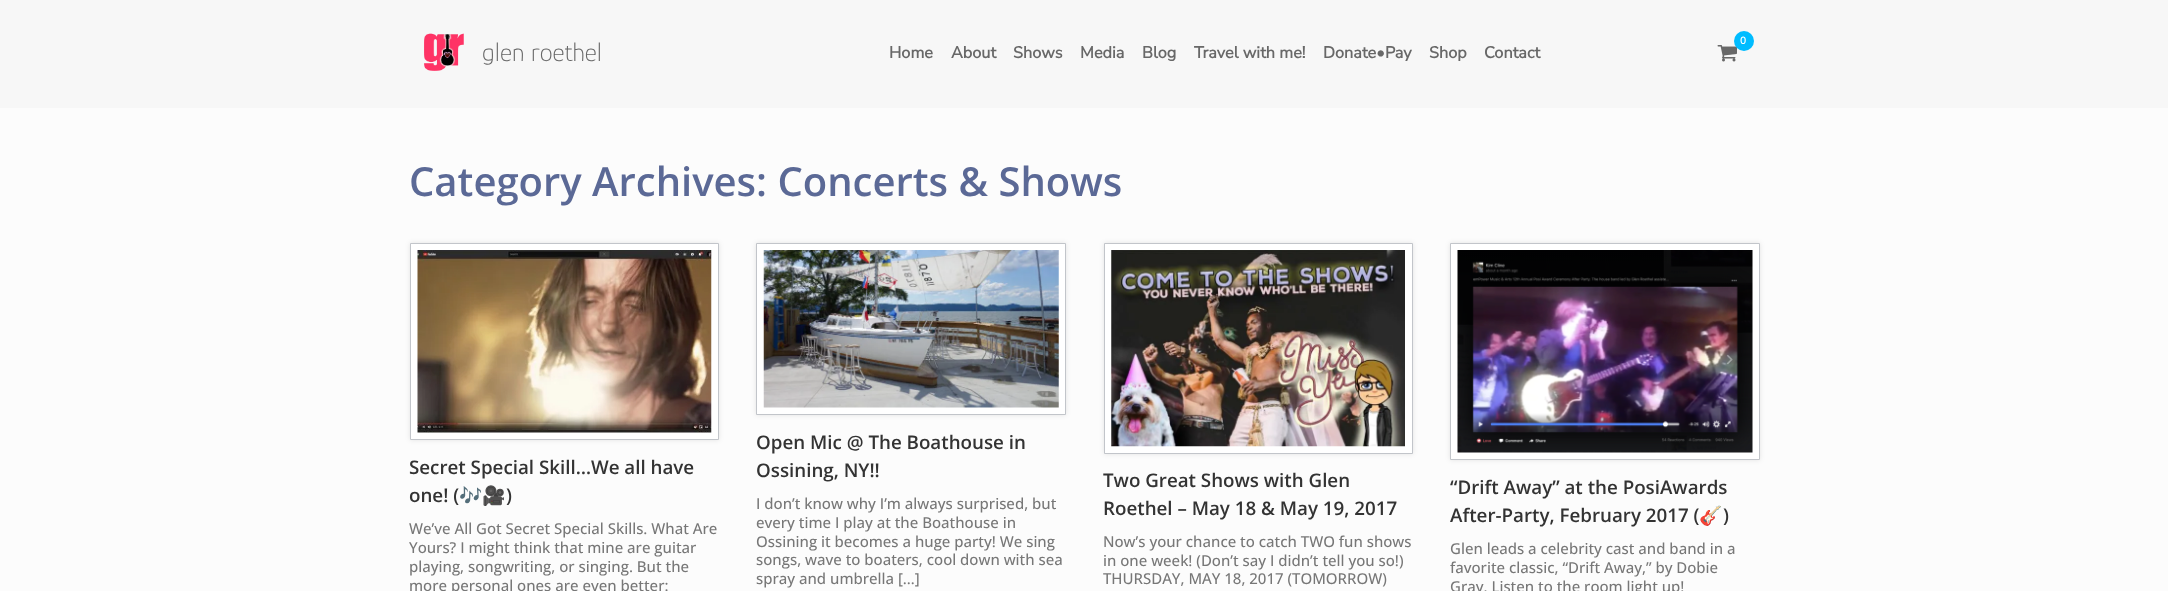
async function draw(canvas) {
	canvas.width = 2168;
	canvas.height = 591;
	const c = canvas.getContext('2d');
	c.miterLimit = 4;
	c.fontKerning = 'normal';
	async function loadImage(src) {
		const img = new Image();
		img.src = src;
		await img.decode();
		return img;
	}

	c.fillStyle = '#fcfcfc';
	c.fillRect(0, 0, 2168, 591);
	c.fillStyle = '#f7f7f7';
	c.fillRect(0, 0, 2168, 108);
	c.drawImage(await loadImage('img1.png'), 424, 33, 40, 38);
	c.font = '100 26.25px Glory';
	c.fillStyle = '#686868';
	c.fillText('glen roethel', 482, 61);
	c.drawImage(await loadImage('img2.png'), 1717, 45, 20, 17);
	c.fillStyle = '#00bcff';
	c.beginPath();
	c.arc(1744, 41, 10, 0, 2 * Math.PI);
	c.fill();
	c.font = 'bold 10px Nunito Sans';
	c.fillStyle = '#fff';
	c.fillText('0', 1740, 44);
	c.font = 'bold 16.25px Nunito Sans';
	c.fillStyle = '#686868';
	for (const [text, x, y] of [
		['Home', 889, 58],
		['About', 951, 58],
		['Shows', 1013, 58],
		['Media', 1080, 58],
		['Blog', 1142, 58],
		['Travel with me!', 1194, 58],
		['Donate•Pay', 1323, 58],
		['Shop', 1429, 58],
		['Contact', 1484, 58],
	]) {
		c.fillText(text, x, y);
	}
	c.font = '600 40px Open Sans';
	c.fillStyle = '#5b6996';
	c.fillText('Category Archives: Concerts & Shows', 409, 196);
	c.fillStyle = '#0000001a';
	c.filter = 'blur(2.5px)';
	c.beginPath();
	c.rect(410, 243, 309, 197);
	c.fill();
	c.filter = 'none';
	c.fillStyle = '#fff';
	c.beginPath();
	c.rect(410.5, 243.5, 308, 196);
	c.fill();
	c.strokeStyle = '#c2c5ca';
	c.stroke();
	c.drawImage(await loadImage('img3.png'), 417, 250, 295, 183);
	c.font = '600 18.75px Open Sans';
	c.fillStyle = '#333';
	c.fillText('Secret Special Skill…We all have', 409, 474);
	c.fillText('one! (', 409, 502);
	c.font = 'bold 18.75px Noto Color Emoji';
	c.fillText('🎶🎥', 459, 502);
	c.font = '600 18.75px Open Sans';
	c.fillText(')', 506, 502);
	c.font = '500 15px Open Sans';
	c.fillStyle = '#777';
	for (const [text, x, y] of [
		['We’ve All Got Secret Special Skills. What Are', 409, 534],
		['Yours? I might think that mine are guitar', 409, 553],
		['playing, songwriting, or singing. But the', 409, 572],
		['more personal ones are even better:', 409, 591],
	]) {
		c.fillText(text, x, y);
	}
	c.fillStyle = '#0000001a';
	c.filter = 'blur(2.5px)';
	c.beginPath();
	c.rect(756, 243, 310, 172);
	c.fill();
	c.filter = 'none';
	c.fillStyle = '#fff';
	c.beginPath();
	c.rect(756.5, 243.5, 309, 171);
	c.fill();
	c.stroke();
	c.drawImage(await loadImage('img4.png'), 763, 250, 296, 158);
	c.font = '600 18.75px Open Sans';
	c.fillStyle = '#333';
	c.fillText('Open Mic @ The Boathouse in', 756, 449);
	c.fillText('Ossining, NY!!', 756, 477);
	c.font = '500 15px Open Sans';
	c.fillStyle = '#777';
	for (const [text, x, y] of [
		['I don’t know why I’m always surprised, but', 756, 509],
		['every time I play at the Boathouse in', 756, 528],
		['Ossining it becomes a huge party! We sing', 756, 547],
		['songs, wave to boaters, cool down with sea', 756, 565],
		['spray and umbrella […]', 756, 584],
	]) {
		c.fillText(text, x, y);
	}
	c.fillStyle = '#0000001a';
	c.filter = 'blur(2.5px)';
	c.beginPath();
	c.rect(1104, 243, 309, 211);
	c.fill();
	c.filter = 'none';
	c.fillStyle = '#fff';
	c.beginPath();
	c.rect(1104.5, 243.5, 308, 210);
	c.fill();
	c.stroke();
	c.drawImage(await loadImage('img5.png'), 1111, 250, 294, 197);
	c.font = '600 18.75px Open Sans';
	c.fillStyle = '#333';
	c.fillText('Two Great Shows with Glen', 1103, 487);
	c.fillText('Roethel – May 18 & May 19, 2017', 1103, 515);
	c.font = '500 15px Open Sans';
	c.fillStyle = '#777';
	for (const [text, x, y] of [
		['Now’s your chance to catch TWO fun shows', 1103, 547],
		['in one week! (Don’t say I didn’t tell you so!)', 1103, 566],
		['THURSDAY, MAY 18, 2017 (TOMORROW)', 1103, 584],
	]) {
		c.fillText(text, x, y);
	}
	c.fillStyle = '#0000001a';
	c.filter = 'blur(2.5px)';
	c.beginPath();
	c.rect(1450, 243, 310, 217);
	c.fill();
	c.filter = 'none';
	c.fillStyle = '#fff';
	c.beginPath();
	c.rect(1450.5, 243.5, 309, 216);
	c.fill();
	c.stroke();
	c.drawImage(await loadImage('img6.png'), 1457, 250, 296, 203);
	c.font = '600 18.75px Open Sans';
	c.fillStyle = '#333';
	c.fillText('“Drift Away” at the PosiAwards', 1450, 494);
	c.fillText('After-Party, February 2017 (', 1450, 522);
	c.font = 'bold 18.75px Noto Color Emoji';
	c.fillText('🎸', 1699, 522);
	c.font = '600 18.75px Open Sans';
	c.fillText(')', 1723, 522);
	c.font = '500 15px Open Sans';
	c.fillStyle = '#777';
	for (const [text, x, y] of [
		['Glen leads a celebrity cast and band in a', 1450, 554],
		['favorite classic, “Drift Away,” by Dobie', 1450, 573],
		['Gray. Listen to the room light up!', 1450, 592],
	]) {
		c.fillText(text, x, y);
	}
}

draw(document.querySelector('canvas'));
